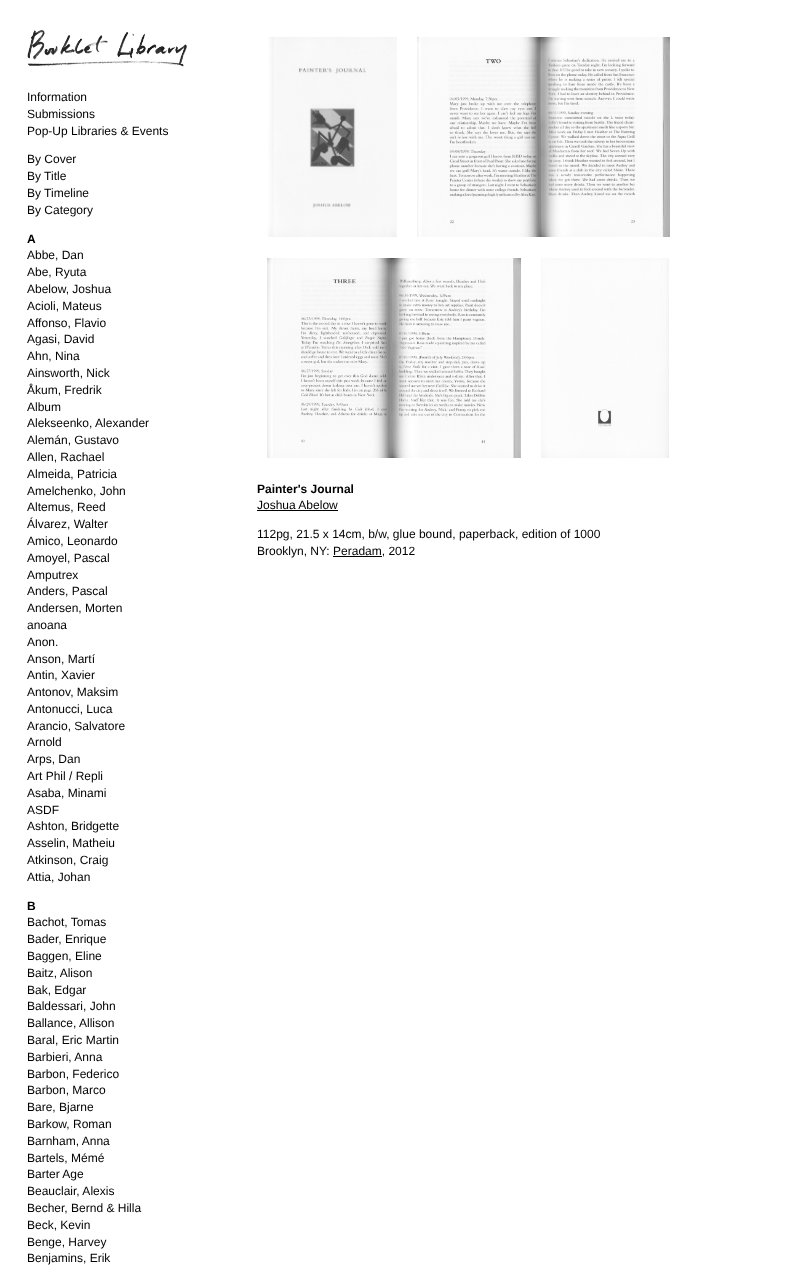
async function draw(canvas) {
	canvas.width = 807;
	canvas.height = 1269;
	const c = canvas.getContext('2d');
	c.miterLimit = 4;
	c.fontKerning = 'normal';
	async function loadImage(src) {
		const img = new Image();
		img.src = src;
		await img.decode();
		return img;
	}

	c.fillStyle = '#fff';
	c.fillRect(0, 0, 807, 1269);
	c.drawImage(await loadImage('img1.png'), 27, 30, 160, 37);
	c.font = '12px Liberation Sans';
	c.fillStyle = '#000';
	for (const [text, x, y] of [
		['Information', 27, 101],
		['Submissions', 27, 118],
		['Pop-Up Libraries & Events', 27, 135],
		['By Cover', 27, 163],
		['By Title', 27, 180],
		['By Timeline', 27, 197],
		['By Category', 27, 214],
	]) {
		c.fillText(text, x, y);
	}
	c.font = 'bold 12px Liberation Sans';
	c.fillText('A', 27, 243);
	c.font = '12px Liberation Sans';
	for (const [text, x, y] of [
		['Abbe, Dan', 27, 259],
		['Abe, Ryuta', 27, 276],
		['Abelow, Joshua', 27, 293],
		['Acioli, Mateus', 27, 310],
		['Affonso, Flavio', 27, 327],
		['Agasi, David', 27, 343],
		['Ahn, Nina', 27, 360],
		['Ainsworth, Nick', 27, 377],
		['Åkum, Fredrik', 27, 394],
		['Album', 27, 411],
		['Alekseenko, Alexander', 27, 427],
		['Alemán, Gustavo', 27, 444],
		['Allen, Rachael', 27, 461],
		['Almeida, Patricia', 27, 478],
		['Amelchenko, John', 27, 495],
		['Altemus, Reed', 27, 511],
		['Álvarez, Walter', 27, 528],
		['Amico, Leonardo', 27, 545],
		['Amoyel, Pascal', 27, 562],
		['Amputrex', 27, 579],
		['Anders, Pascal', 27, 595],
		['Andersen, Morten', 27, 612],
		['anoana', 27, 629],
		['Anon.', 27, 646],
		['Anson, Martí', 27, 663],
		['Antin, Xavier', 27, 679],
		['Antonov, Maksim', 27, 696],
		['Antonucci, Luca', 27, 713],
		['Arancio, Salvatore', 27, 730],
		['Arnold', 27, 746],
		['Arps, Dan', 27, 763],
		['Art Phil / Repli', 27, 780],
		['Asaba, Minami', 27, 797],
		['ASDF', 27, 814],
		['Ashton, Bridgette', 27, 830],
		['Asselin, Matheiu', 27, 847],
		['Atkinson, Craig', 27, 864],
		['Attia, Johan', 27, 881],
	]) {
		c.fillText(text, x, y);
	}
	c.font = 'bold 12px Liberation Sans';
	c.fillText('B', 27, 910);
	c.font = '12px Liberation Sans';
	for (const [text, x, y] of [
		['Bachot, Tomas', 27, 926],
		['Bader, Enrique', 27, 943],
		['Baggen, Eline', 27, 960],
		['Baitz, Alison', 27, 977],
		['Bak, Edgar', 27, 994],
		['Baldessari, John', 27, 1010],
		['Ballance, Allison', 27, 1027],
		['Baral, Eric Martin', 27, 1044],
		['Barbieri, Anna', 27, 1061],
		['Barbon, Federico', 27, 1078],
		['Barbon, Marco', 27, 1094],
		['Bare, Bjarne', 27, 1111],
		['Barkow, Roman', 27, 1128],
		['Barnham, Anna', 27, 1145],
		['Bartels, Mémé', 27, 1162],
		['Barter Age', 27, 1178],
		['Beauclair, Alexis', 27, 1195],
		['Becher, Bernd & Hilla', 27, 1212],
		['Beck, Kevin', 27, 1229],
		['Benge, Harvey', 27, 1246],
		['Benjamins, Erik', 27, 1262],
	]) {
		c.fillText(text, x, y);
	}
	c.drawImage(await loadImage('img2.png'), 267, 37, 130, 200);
	c.drawImage(await loadImage('img3.png'), 417, 37, 253, 200);
	c.drawImage(await loadImage('img4.png'), 267, 258, 254, 200);
	c.drawImage(await loadImage('img5.png'), 541, 258, 128, 200);
	c.font = 'bold 12px Liberation Sans';
	c.fillText('Painter\'s Journal', 257, 493);
	c.font = '12px Liberation Sans';
	c.fillText('Joshua Abelow', 257, 509);
	c.fillRect(257, 510, 81, 1);
	c.fillText('112pg, 21.5 x 14cm, b/w, glue bound, paperback, edition of 1000', 257, 538);
	c.fillText('Brooklyn, NY: Peradam, 2012', 257, 555);
	c.fillRect(333, 556, 49, 1);
}

draw(document.querySelector('canvas'));
